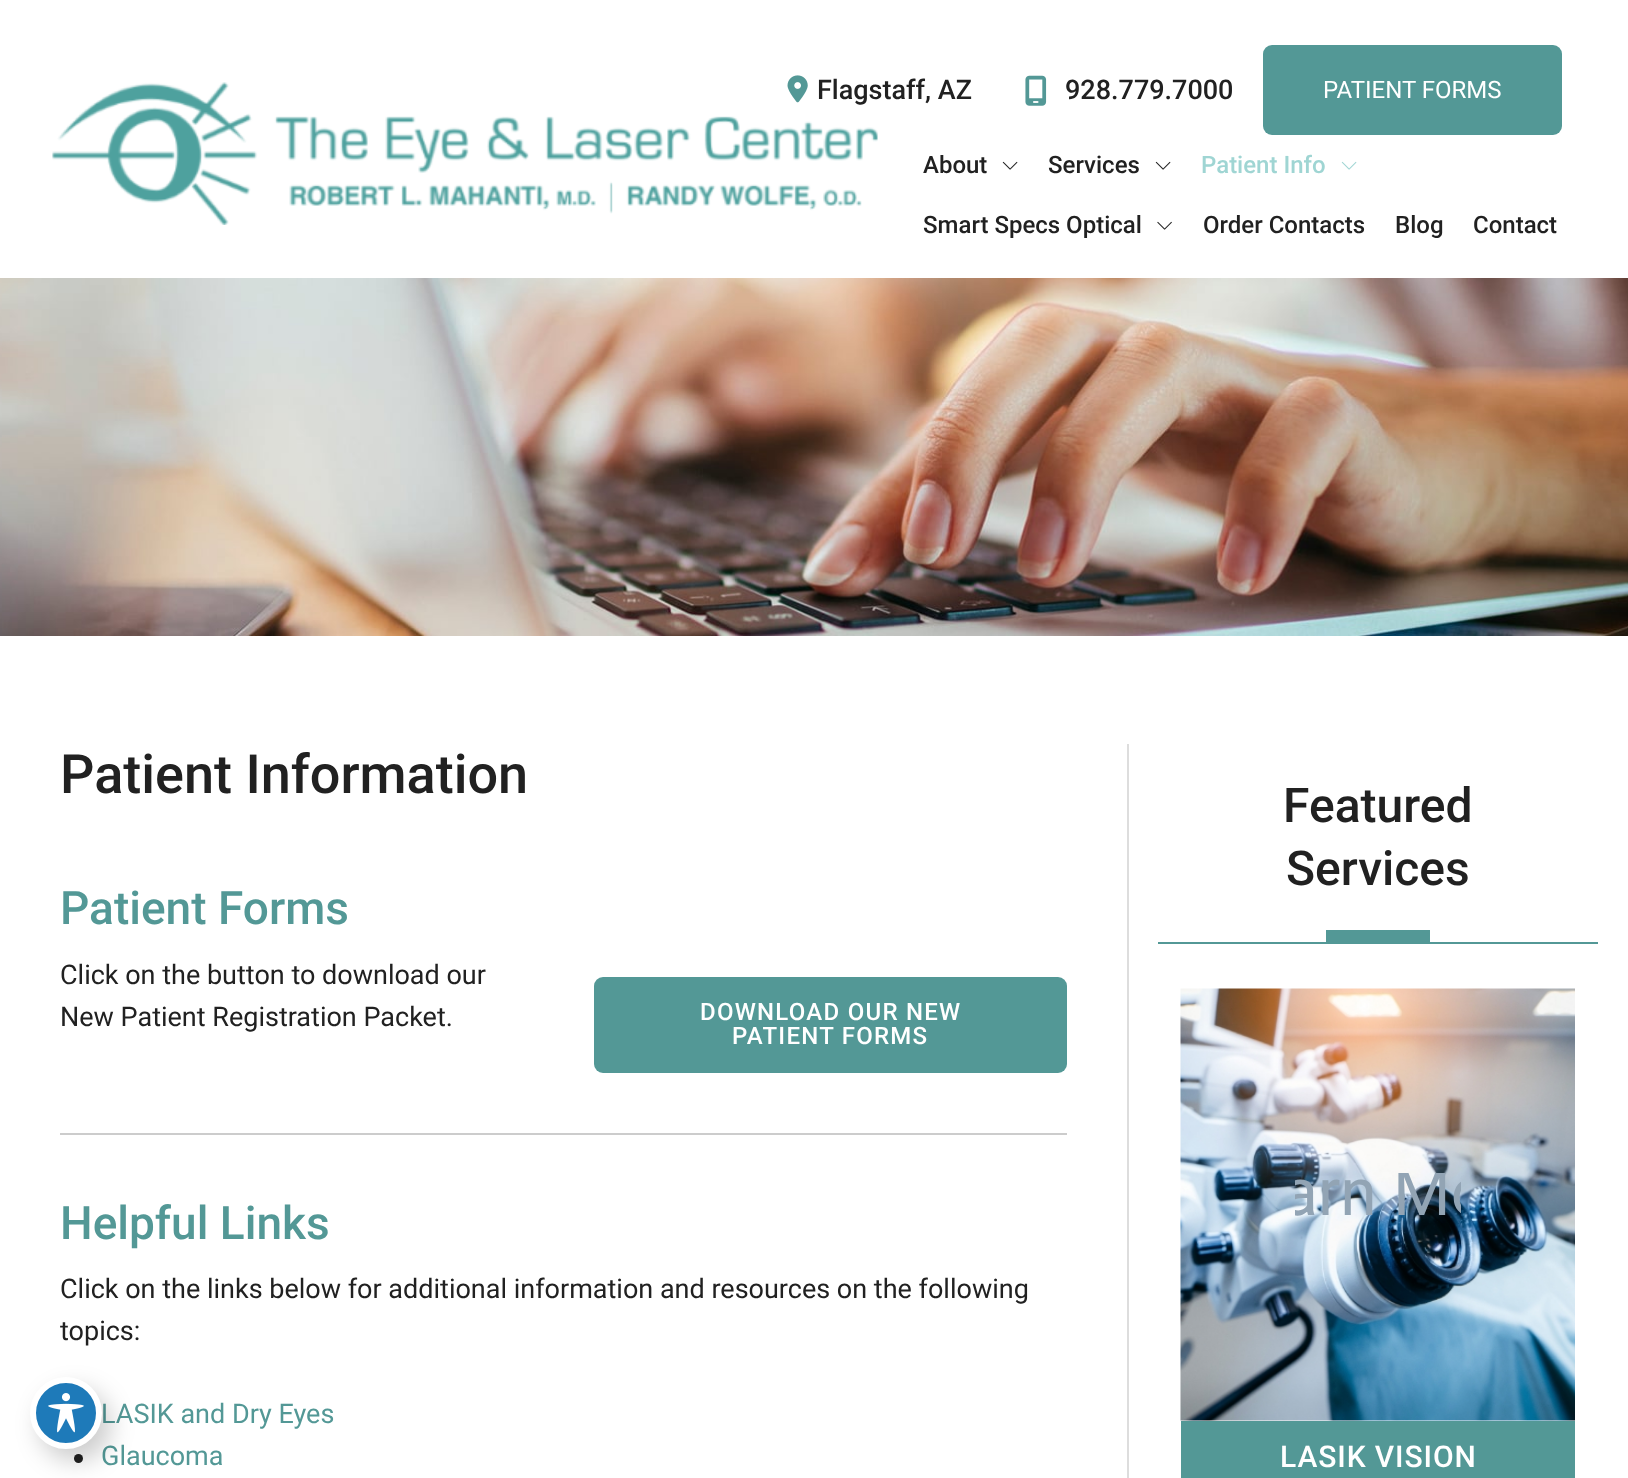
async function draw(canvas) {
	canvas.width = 1628;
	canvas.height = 1478;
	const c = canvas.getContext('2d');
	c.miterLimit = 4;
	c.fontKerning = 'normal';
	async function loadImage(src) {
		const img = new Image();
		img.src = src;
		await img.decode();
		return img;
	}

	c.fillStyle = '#fff';
	c.fillRect(0, 0, 1628, 1478);
	c.drawImage(await loadImage('img1.png'), 787, 75, 21, 28);
	c.font = '500 27px Roboto';
	c.fillStyle = '#212121';
	c.fillText('Flagstaff, AZ', 817, 99);
	c.drawImage(await loadImage('img2.png'), 1025, 75, 22, 31);
	c.fillText('928.779.7000', 1065, 99);
	c.fillStyle = '#539896';
	c.beginPath();
	c.roundRect(1263, 45, 299, 90, 9);
	c.fill();
	c.font = '24px Roboto';
	c.fillStyle = '#fff';
	c.fillText('PATIENT FORMS', 1323, 98);
	c.drawImage(await loadImage('img3.png'), 52, 82, 826, 143);
	c.font = '500 24px Roboto';
	c.fillStyle = '#212121';
	c.fillText('About', 923, 173);
	c.drawImage(await loadImage('img4.png'), 1002, 161, 16, 9);
	c.fillText('Services', 1048, 173);
	c.drawImage(await loadImage('img4.png'), 1155, 161, 16, 9);
	c.fillStyle = '#9fd5d3';
	c.fillText('Patient Info', 1201, 173);
	c.drawImage(await loadImage('img5.png'), 1341, 161, 16, 9);
	c.fillStyle = '#212121';
	c.fillText('Smart Specs Optical', 923, 233);
	c.drawImage(await loadImage('img6.png'), 1157, 221, 15, 9);
	for (const [text, x, y] of [
		['Order Contacts', 1203, 233],
		['Blog', 1395, 233],
		['Contact', 1473, 233],
	]) {
		c.fillText(text, x, y);
	}
	c.drawImage(await loadImage('img7.png'), 0, 278, 1628, 358);
	c.fillStyle = '#ddd';
	c.fillRect(1127, 744, 2, 734);
	c.font = '500 54px Roboto';
	c.fillStyle = '#212121';
	c.fillText('Patient Information', 60, 793);
	c.font = '500 46px Roboto';
	c.fillStyle = '#539896';
	c.fillText('Patient Forms', 60, 924);
	c.font = '27px Roboto';
	c.fillStyle = '#212121';
	c.fillText('Click on the button to download our', 60, 984);
	c.fillText('New Patient Registration Packet.', 60, 1026);
	c.fillStyle = '#539896';
	c.beginPath();
	c.roundRect(594, 977, 473, 96, 9);
	c.fill();
	c.letterSpacing = '1.25px';
	c.font = '500 24px Roboto';
	c.fillStyle = '#fff';
	c.fillText('DOWNLOAD OUR NEW', 700, 1020);
	c.fillText('PATIENT FORMS', 732, 1044);
	c.fillStyle = '#ccc';
	c.fillRect(60, 1133, 1007, 2);
	c.letterSpacing = '0px';
	c.font = '500 46px Roboto';
	c.fillStyle = '#539896';
	c.fillText('Helpful Links', 60, 1239);
	c.font = '27px Roboto';
	c.fillStyle = '#212121';
	c.fillText('Click on the links below for additional information and resources on the following', 60, 1298);
	c.fillText('topics:', 60, 1340);
	c.fillStyle = '#539896';
	c.fillText('LASIK and Dry Eyes', 101, 1423);
	c.fillStyle = '#212121';
	c.beginPath();
	c.arc(78.5, 1458.5, 4.5, 0, 2 * Math.PI);
	c.fill();
	c.fillStyle = '#539896';
	c.fillText('Glaucoma', 101, 1465);
	c.font = '500 48px Roboto';
	c.fillStyle = '#212121';
	c.fillText('Featured', 1283, 822);
	c.fillText('Services', 1286, 885);
	c.fillStyle = '#539896';
	c.fillRect(1326, 930, 104, 12);
	c.fillRect(1158, 942, 440, 2);
	c.drawImage(await loadImage('img8.png'), 1180, 988, 395, 433);
	c.save();
	c.beginPath();
	c.rect(1295, 1173, 166, 63);
	c.clip();
	c.font = '66px Roboto';
	c.fillStyle = '#92a4b4';
	c.fillText('arn Mo', 1282, 1215);
	c.restore();
	c.fillRect(1181, 1421, 394, 57);
	c.letterSpacing = '0.9px';
	c.font = '500 30px Roboto';
	c.fillStyle = '#fff';
	c.fillText('LASIK VISION', 1280, 1467);
	c.fillStyle = '#00000033';
	c.filter = 'blur(12px)';
	c.beginPath();
	c.roundRect(39, 1389, 72, 72, 36);
	c.fill();
	c.filter = 'none';
	c.fillStyle = '#1e7ab9';
	c.beginPath();
	c.arc(66, 1413, 33, 0, 2 * Math.PI);
	c.fill();
	c.strokeStyle = '#fff';
	c.lineWidth = 6;
	c.stroke();
	c.drawImage(await loadImage('img9.png'), 48, 1393, 36, 40);
}

draw(document.querySelector('canvas'));
